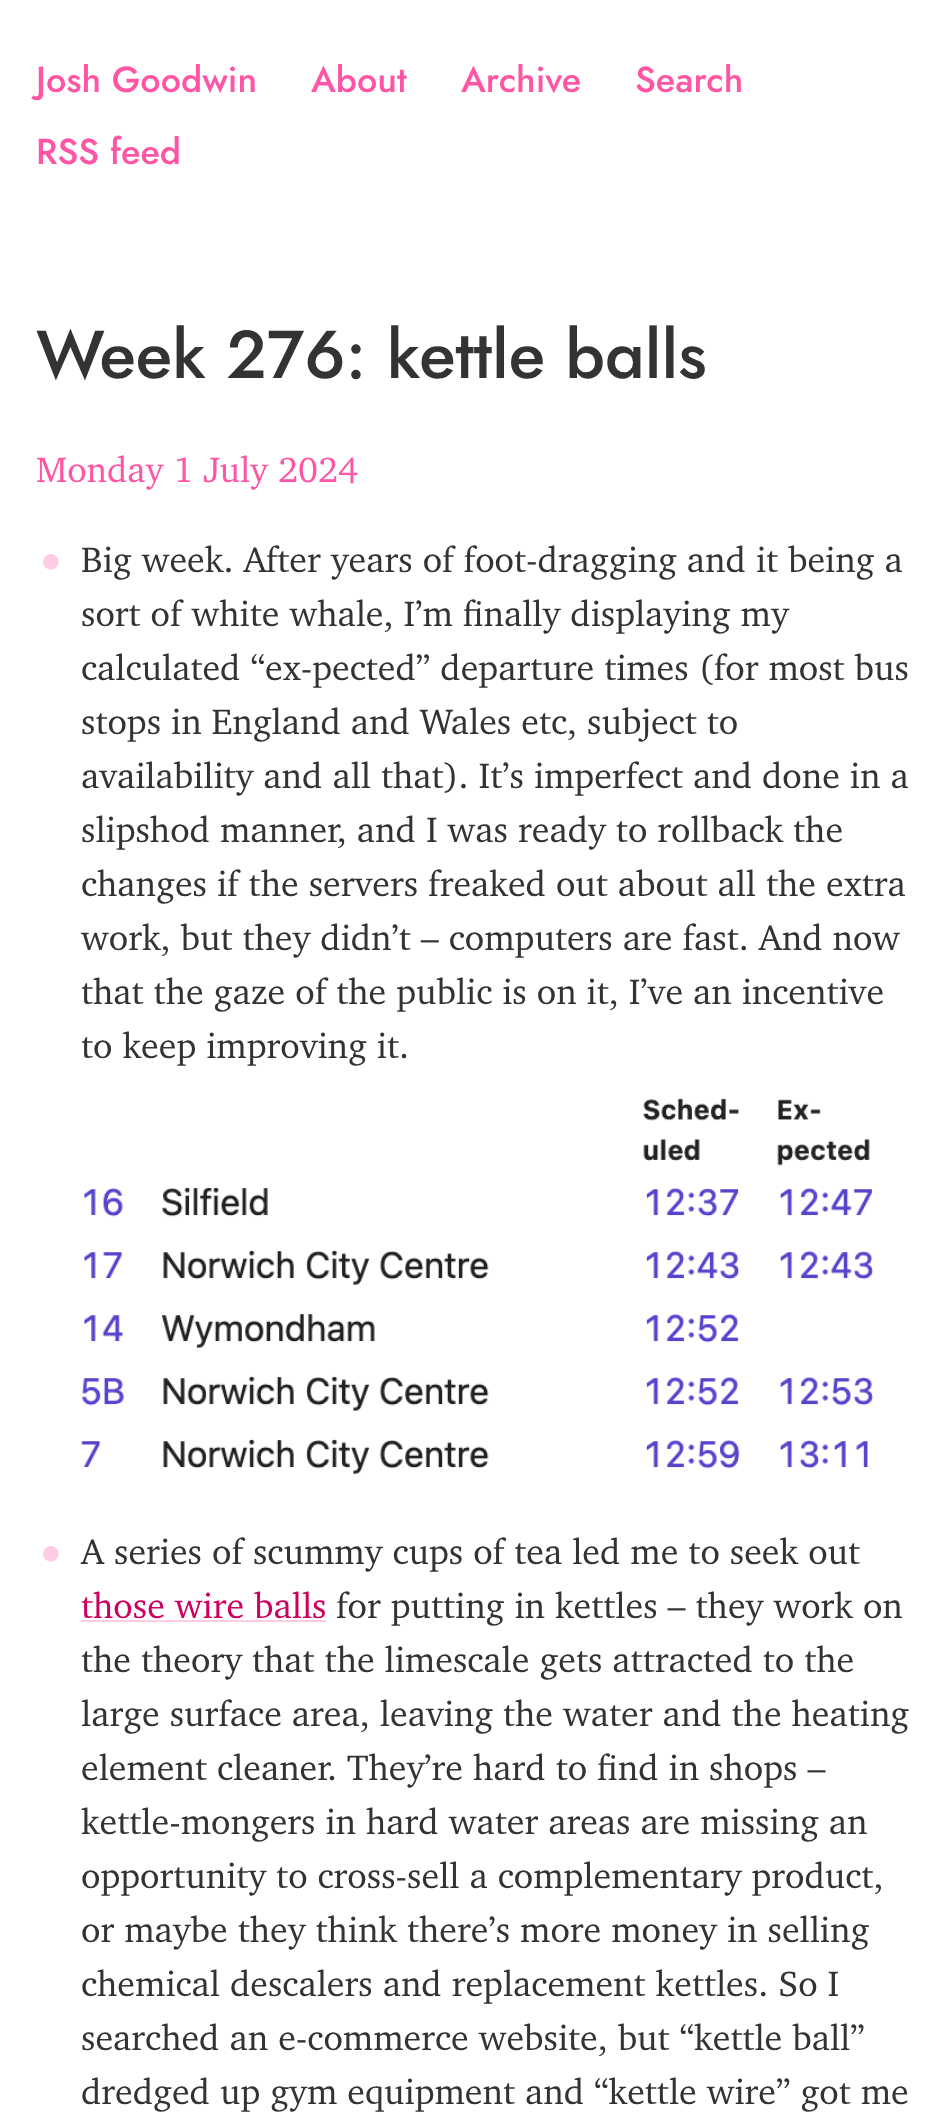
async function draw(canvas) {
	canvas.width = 949;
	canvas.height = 2128;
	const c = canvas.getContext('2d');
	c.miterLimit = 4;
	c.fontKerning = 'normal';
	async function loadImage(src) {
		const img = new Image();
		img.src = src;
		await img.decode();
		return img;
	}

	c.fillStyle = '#fff';
	c.fillRect(0, 0, 949, 2128);
	c.font = '500 36px Jost';
	c.fillStyle = '#ff55a4';
	for (const [text, x, y] of [
		['Josh Goodwin', 36, 92],
		['About', 311, 92],
		['Archive', 461, 92],
		['Search', 635, 92],
		['RSS feed', 36, 164],
	]) {
		c.fillText(text, x, y);
	}
	c.font = '500 67.5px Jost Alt';
	c.fillStyle = '#333';
	c.fillText('Week 276: kettle balls', 36, 378);
	c.font = '36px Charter';
	c.fillStyle = '#ff55a4';
	c.fillText('Monday 1 July 2024', 36, 482);
	c.font = '36px Liberation Serif';
	c.fillStyle = '#ffcce4';
	c.fillText('●', 40, 572);
	c.font = '36px Charter';
	c.fillStyle = '#333';
	for (const [text, x, y] of [
		['Big week. After years of foot-dragging and it being a', 81, 572],
		['sort of white whale, I’m finally displaying my', 81, 626],
		['calculated “ex-pected” departure times (for most bus', 81, 680],
		['stops in England and Wales etc, subject to', 81, 734],
		['availability and all that). It’s imperfect and done in a', 81, 788],
		['slipshod manner, and I was ready to rollback the', 81, 842],
		['changes if the servers freaked out about all the extra', 81, 896],
		['work, but they didn’t – computers are fast. And now', 81, 950],
		['that the gaze of the public is on it, I’ve an incentive', 81, 1004],
		['to keep improving it.', 81, 1058],
	]) {
		c.fillText(text, x, y);
	}
	c.drawImage(await loadImage('img1.png'), 81, 1098, 792, 376);
	c.font = '36px Liberation Serif';
	c.fillStyle = '#ffcce4';
	c.fillText('●', 40, 1564);
	c.font = '36px Charter';
	c.fillStyle = '#333';
	c.fillText('A series of scummy cups of tea led me to seek out', 81, 1564);
	c.fillStyle = '#cc005f';
	c.fillText('those wire balls', 81, 1618);
	c.fillStyle = '#ffcce4';
	c.fillRect(81, 1620, 245, 2);
	c.fillStyle = '#333';
	for (const [text, x, y] of [
		['for putting in kettles – they work on', 336, 1618],
		['the theory that the limescale gets attracted to the', 81, 1672],
		['large surface area, leaving the water and the heating', 81, 1726],
		['element cleaner. They’re hard to find in shops –', 81, 1780],
		['kettle-mongers in hard water areas are missing an', 81, 1834],
		['opportunity to cross-sell a complementary product,', 81, 1888],
		['or maybe they think there’s more money in selling', 81, 1942],
		['chemical descalers and replacement kettles. So I', 81, 1996],
		['searched an e-commerce website, but “kettle ball”', 81, 2050],
		['dredged up gym equipment and “kettle wire” got me', 81, 2104],
	]) {
		c.fillText(text, x, y);
	}
}

draw(document.querySelector('canvas'));
